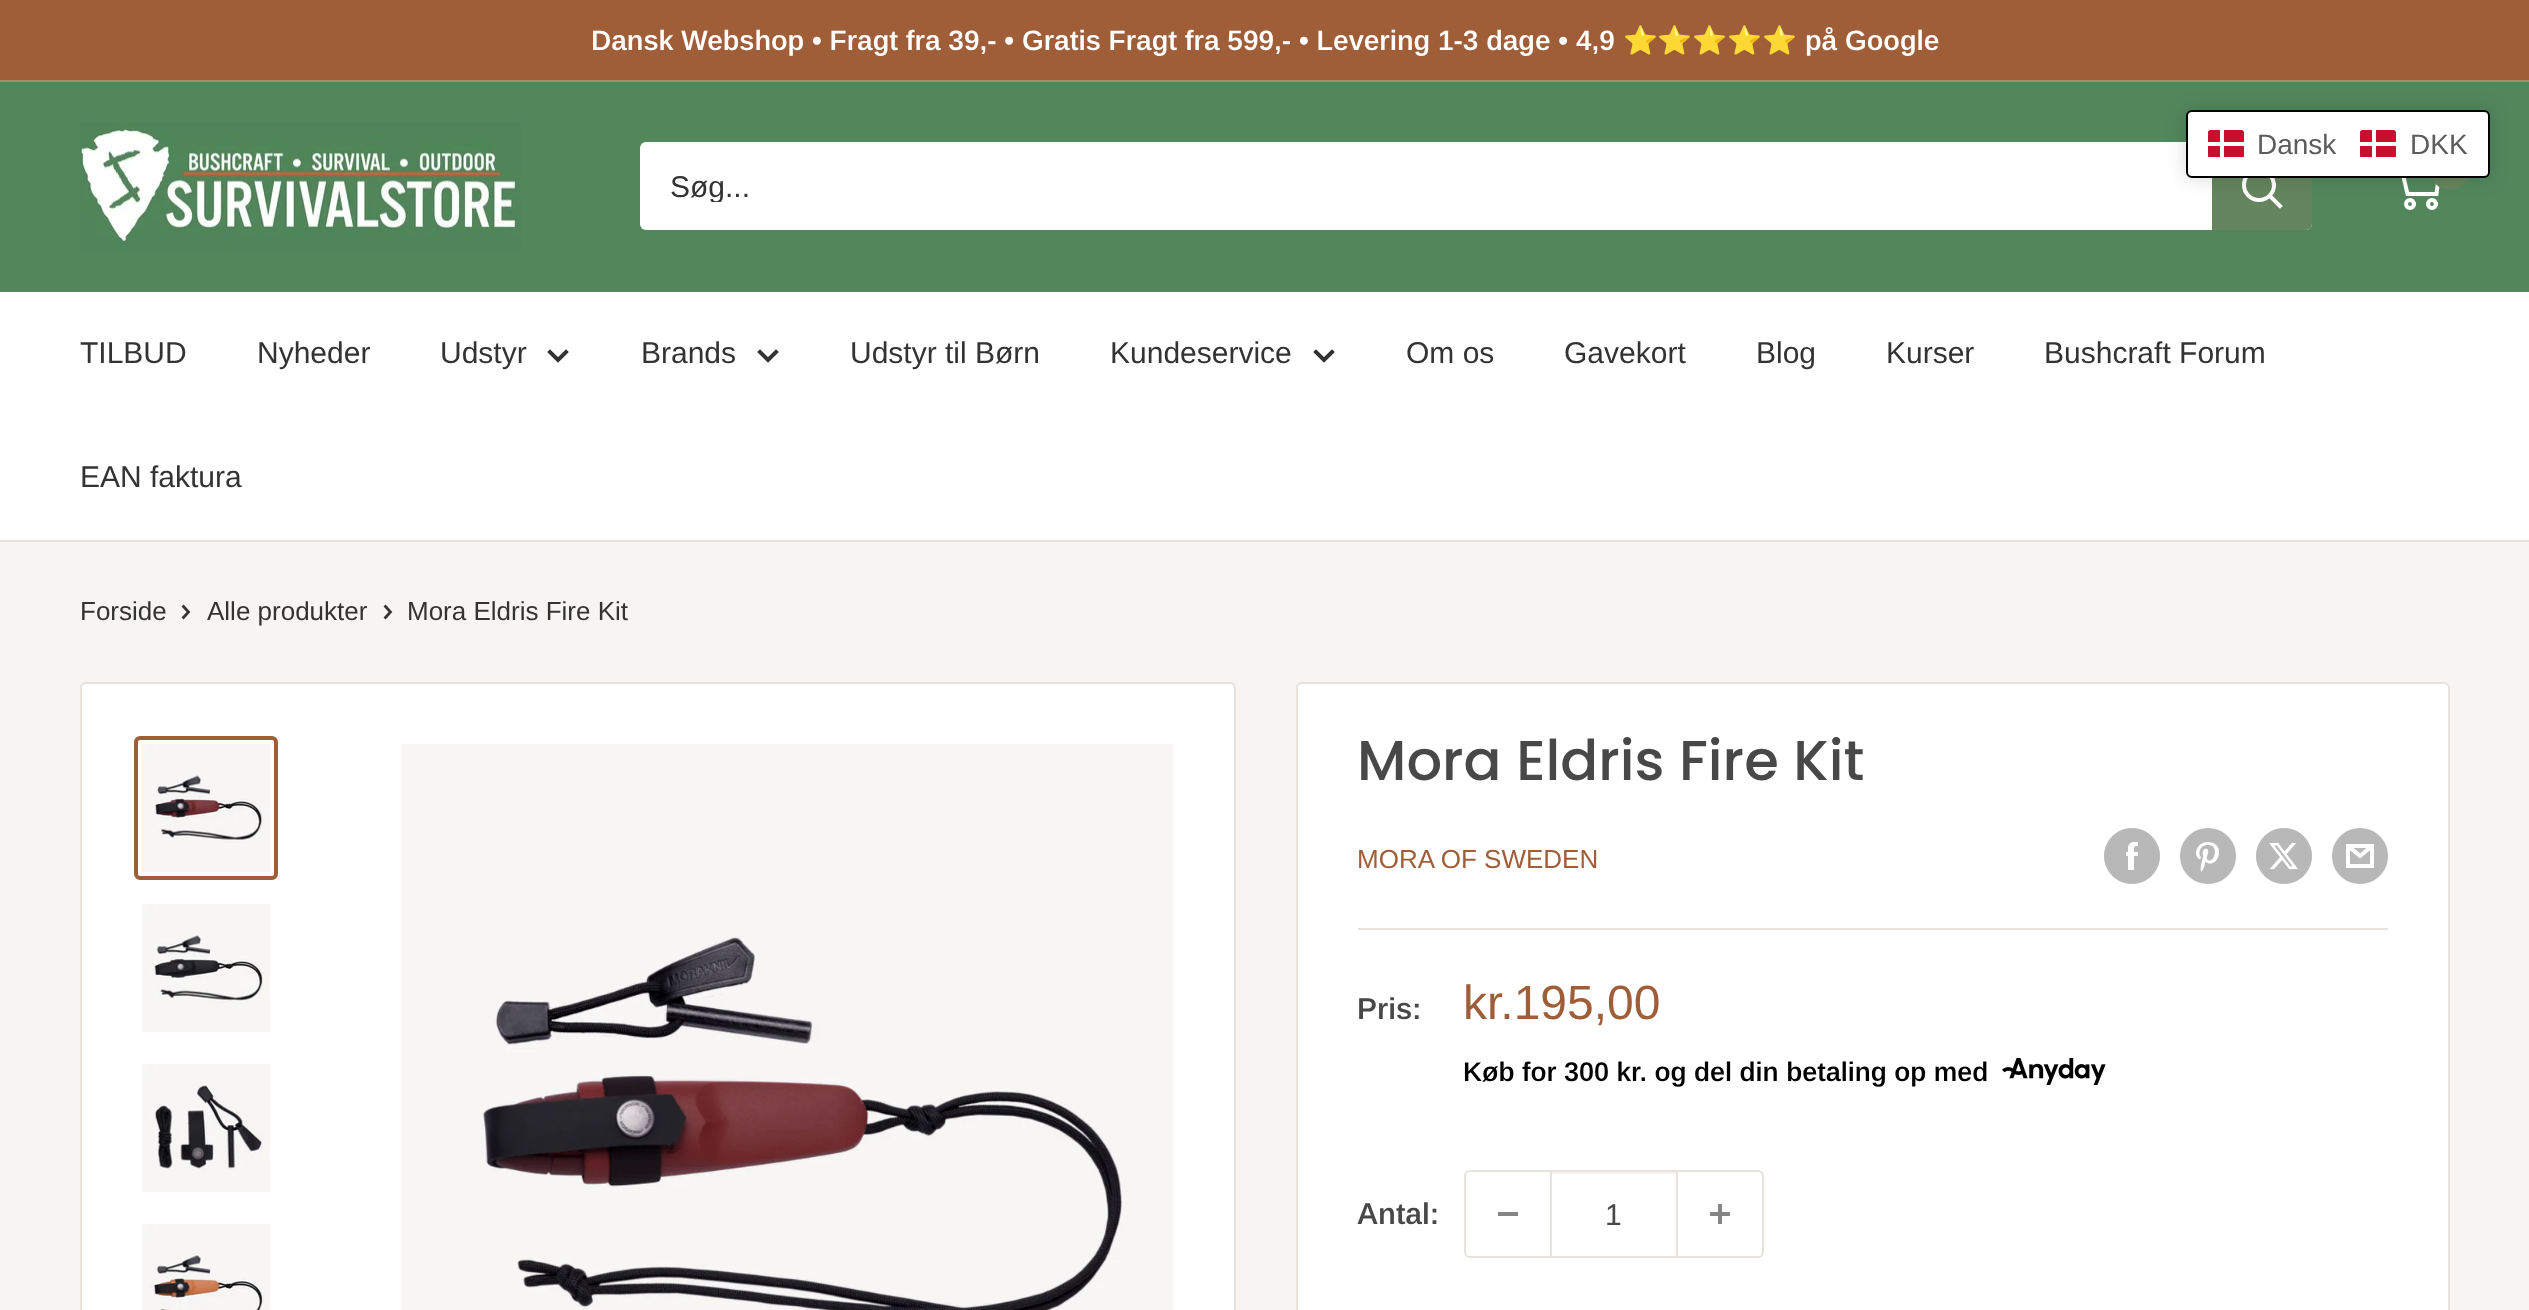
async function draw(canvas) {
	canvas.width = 2529;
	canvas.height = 1310;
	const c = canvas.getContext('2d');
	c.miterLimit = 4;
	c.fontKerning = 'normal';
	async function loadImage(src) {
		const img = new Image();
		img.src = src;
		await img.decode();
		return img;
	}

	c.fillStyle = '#f7f4f2';
	c.fillRect(0, 0, 2529, 1310);
	c.fillStyle = '#a05e38';
	c.fillRect(0, 0, 2529, 80);
	c.fillStyle = '#b6866a';
	c.fillRect(0, 80, 2529, 2);
	c.font = '600 28px Arimo';
	c.fillStyle = '#fff';
	c.fillText('Dansk Webshop • Fragt fra 39,- • Gratis Fragt fra 599,- • Levering 1-3 dage • 4,9', 591, 50);
	c.font = 'bold 28px Noto Color Emoji';
	c.fillText('⭐️⭐️⭐️⭐️⭐️', 1623, 50);
	c.font = '600 28px Arimo';
	c.fillText('på Google', 1805, 50);
	c.fillStyle = '#52875c';
	c.fillRect(0, 82, 2529, 210);
	c.fillStyle = '#fff';
	c.beginPath();
	c.roundRect(640, 142, 1672, 88, 6);
	c.fill();
	c.fillStyle = '#64855d';
	c.beginPath();
	c.roundRect(2212, 142, 100, 88, [0, 6, 6, 0]);
	c.fill();
	c.beginPath();
	c.moveTo(2280, 206);
	c.lineTo(2270, 196);
	c.strokeStyle = '#fff';
	c.lineWidth = 4;
	c.lineCap = 'square';
	c.stroke();
	c.beginPath();
	c.arc(2259, 185, 15, 0, 2 * Math.PI);
	c.stroke();
	c.beginPath();
	c.arc(2410, 204, 4, 0, 2 * Math.PI);
	c.stroke();
	c.beginPath();
	c.arc(2432, 204, 4, 0, 2 * Math.PI);
	c.stroke();
	c.beginPath();
	c.moveTo(2402.5, 174);
	c.lineTo(2439, 174);
	c.lineTo(2436.5, 194);
	c.lineTo(2407.5, 194);
	c.lineTo(2400.5, 164);
	c.lineTo(2388, 164);
	c.lineCap = 'butt';
	c.stroke();
	c.beginPath();
	c.roundRect(2430, 148, 40, 42, 20);
	c.fill();
	c.fillStyle = '#00000026';
	c.filter = 'blur(10px)';
	c.beginPath();
	c.roundRect(2186, 110, 304, 68, 6);
	c.fill();
	c.filter = 'none';
	c.fillStyle = '#fff';
	c.beginPath();
	c.roundRect(2187, 111, 302, 66, 5);
	c.fill();
	c.strokeStyle = '#000';
	c.lineWidth = 2;
	c.stroke();
	c.save();
	c.beginPath();
	c.roundRect(2208, 130, 36, 28, 2);
	c.clip();
	c.fillStyle = '#c8102e';
	c.beginPath();
	c.roundRect(2208, 130, 36, 27, [2, 2, 0, 0]);
	c.fill();
	c.restore();
	c.fillRect(2220, 130, 4, 27);
	c.fillRect(2208, 142, 36, 4);
	c.font = '28px Arimo';
	c.fillStyle = '#5c5c5c';
	c.fillText('Dansk', 2257, 154);
	c.save();
	c.beginPath();
	c.roundRect(2360, 130, 36, 28, 2);
	c.clip();
	c.fillStyle = '#c8102e';
	c.beginPath();
	c.roundRect(2360, 130, 36, 27, [2, 2, 0, 0]);
	c.fill();
	c.restore();
	c.fillStyle = '#fff';
	c.fillRect(2372, 130, 4, 27);
	c.fillRect(2360, 142, 36, 4);
	c.fillStyle = '#5c5c5c';
	c.fillText('DKK', 2410, 154);
	c.drawImage(await loadImage('img1.png'), 80, 122, 441, 129);
	c.save();
	c.beginPath();
	c.rect(670, 168, 1512, 34);
	c.clip();
	c.font = '30px Arimo';
	c.fillStyle = '#333';
	c.fillText('Søg...', 670, 197);
	c.restore();
	c.fillStyle = '#fff';
	c.fillRect(0, 292, 2529, 248);
	c.fillStyle = '#e7e2de';
	c.fillRect(0, 540, 2529, 2);
	c.font = '30px Arimo';
	c.fillStyle = '#333';
	for (const [text, x, y] of [
		['TILBUD', 80, 363],
		['Nyheder', 257, 363],
		['Udstyr', 440, 363],
	]) {
		c.fillText(text, x, y);
	}
	c.beginPath();
	c.moveTo(566, 352);
	c.lineTo(558, 360);
	c.lineTo(550, 352);
	c.strokeStyle = '#333';
	c.lineWidth = 4;
	c.lineCap = 'square';
	c.stroke();
	c.fillText('Brands', 641, 363);
	c.beginPath();
	c.moveTo(776, 352);
	c.lineTo(768, 360);
	c.lineTo(760, 352);
	c.stroke();
	c.fillText('Udstyr til Børn', 850, 363);
	c.fillText('Kundeservice', 1110, 363);
	c.beginPath();
	c.moveTo(1332, 352);
	c.lineTo(1324, 360);
	c.lineTo(1316, 352);
	c.stroke();
	for (const [text, x, y] of [
		['Om os', 1406, 363],
		['Gavekort', 1564, 363],
		['Blog', 1756, 363],
		['Kurser', 1886, 363],
		['Bushcraft Forum', 2044, 363],
		['EAN faktura', 80, 487],
	]) {
		c.fillText(text, x, y);
	}
	c.font = '26px Arimo';
	c.fillText('Forside', 80, 620);
	c.beginPath();
	c.moveTo(183.5, 606.5);
	c.lineTo(188.5, 612);
	c.lineTo(183.5, 617.5);
	c.lineWidth = 2.7;
	c.stroke();
	c.fillText('Alle produkter', 207, 620);
	c.beginPath();
	c.moveTo(385.5, 606.5);
	c.lineTo(390.5, 612);
	c.lineTo(385.5, 617.5);
	c.stroke();
	c.fillText('Mora Eldris Fire Kit', 407, 620);
	c.fillStyle = '#fff';
	c.beginPath();
	c.roundRect(81, 683, 1154, 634, 5);
	c.fill();
	c.strokeStyle = '#e7e2de';
	c.lineWidth = 2;
	c.stroke();
	c.beginPath();
	c.roundRect(136, 738, 140, 140, 4);
	c.strokeStyle = '#a05e38';
	c.lineWidth = 4;
	c.stroke();
	c.drawImage(await loadImage('img2.png'), 142, 744, 128, 128);
	c.drawImage(await loadImage('img3.png'), 142, 904, 128, 128);
	c.drawImage(await loadImage('img4.png'), 142, 1064, 128, 128);
	c.drawImage(await loadImage('img5.png'), 142, 1224, 128, 86);
	c.drawImage(await loadImage('img6.png'), 401, 744, 773, 566);
	c.beginPath();
	c.roundRect(1297, 683, 1152, 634, 5);
	c.fill();
	c.strokeStyle = '#e7e2de';
	c.lineWidth = 2;
	c.stroke();
	c.font = '500 56px Poppins';
	c.fillStyle = '#484848';
	c.fillText('Mora Eldris Fire Kit', 1357, 780);
	c.font = '26px Arimo';
	c.fillStyle = '#a05e38';
	c.fillText('MORA OF SWEDEN', 1357, 868);
	c.drawImage(await loadImage('img7.png'), 2104, 828, 56, 56);
	c.drawImage(await loadImage('img8.png'), 2180, 828, 56, 56);
	c.drawImage(await loadImage('img9.png'), 2256, 828, 56, 56);
	c.drawImage(await loadImage('img10.png'), 2332, 828, 56, 56);
	c.fillStyle = '#e7e2de';
	c.fillRect(1358, 928, 1030, 2);
	c.font = '600 30px Arimo';
	c.fillStyle = '#484848';
	c.fillText('Pris:', 1357, 1019);
	c.font = '48px Arimo';
	c.fillStyle = '#a05e38';
	c.fillText('kr.195,00', 1463, 1019);
	c.font = '600 27px Arimo';
	c.fillStyle = '#000';
	c.fillText('Køb for 300 kr. og del din betaling op med', 1463, 1081);
	c.drawImage(await loadImage('img11.png'), 2002, 1058, 104, 27);
	c.font = '600 30px Arimo';
	c.fillStyle = '#484848';
	c.fillText('Antal:', 1357, 1224);
	c.beginPath();
	c.roundRect(1465, 1171, 298, 86, 5);
	c.stroke();
	for (const [x, y, w, h, color] of [
		[1498, 1212, 20, 4, '#858585'],
		[1552, 1172, 124, 2, '#f5f3f2'],
		[1676, 1172, 2, 84, '#e7e2de'],
		[1550, 1172, 2, 84, '#e7e2de'],
	]) {
		c.fillStyle = color;
		c.fillRect(x, y, w, h);
	}
	c.font = '30px Arimo';
	c.fillStyle = '#484848';
	c.fillText('1', 1605, 1225);
	c.drawImage(await loadImage('img12.png'), 1710, 1204, 20, 20);
}

draw(document.querySelector('canvas'));
